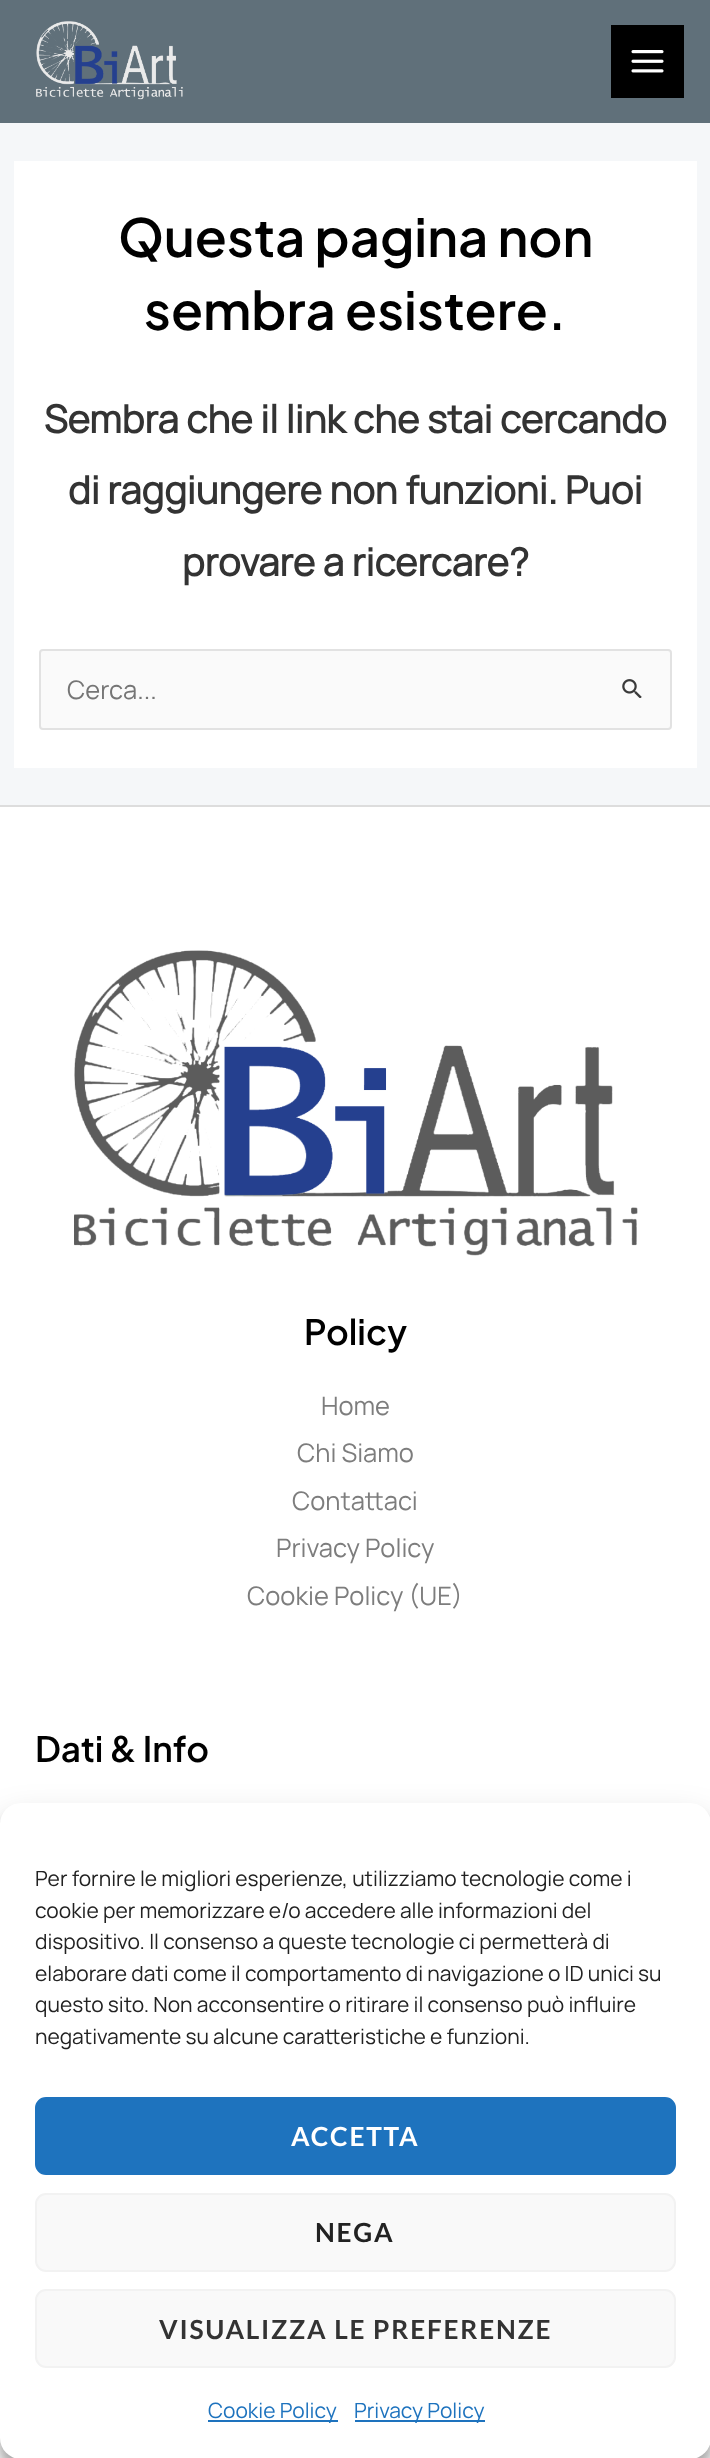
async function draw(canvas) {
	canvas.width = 710;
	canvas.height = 2458;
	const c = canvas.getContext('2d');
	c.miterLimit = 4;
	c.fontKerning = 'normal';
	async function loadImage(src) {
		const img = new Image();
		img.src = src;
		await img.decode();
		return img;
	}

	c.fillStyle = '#f5f7f9';
	c.fillRect(0, 0, 710, 2458);
	c.fillStyle = '#60707a';
	c.fillRect(0, 0, 710, 123);
	c.drawImage(await loadImage('img1.png'), 36, 21, 147, 79);
	c.fillStyle = '#000';
	c.fillRect(611, 25, 73, 73);
	c.drawImage(await loadImage('img2.png'), 631, 50, 33, 23);
	c.fillStyle = '#fff';
	c.fillRect(14, 161, 683, 607);
	c.font = '600 52.5px Plus Jakarta Sans';
	c.fillStyle = '#000';
	c.fillText('Questa pagina non', 118, 257);
	c.fillText('sembra esistere.', 144, 330);
	c.font = 'bold 38.25px Manrope';
	c.fillStyle = '#333';
	for (const [text, x, y] of [
		['Sembra che il link che stai cercando', 44, 433],
		['di raggiungere non funzioni. Puoi', 68, 504],
		['provare a ricercare?', 182, 576],
	]) {
		c.fillText(text, x, y);
	}
	c.fillStyle = '#fafafa';
	c.beginPath();
	c.roundRect(40, 650, 631, 79, 3);
	c.fill();
	c.strokeStyle = '#e2e2e2';
	c.lineWidth = 2;
	c.stroke();
	c.font = '200 25.5px Manrope';
	c.fillStyle = '#757575';
	c.fillText('Cerca...', 67, 699);
	c.drawImage(await loadImage('img3.png'), 622, 679, 20, 19);
	c.fillStyle = '#fff';
	c.fillRect(0, 807, 710, 1651);
	c.fillStyle = '#ddd';
	c.fillRect(0, 805, 710, 2);
	c.drawImage(await loadImage('img4.png'), 74, 950, 564, 306);
	c.font = '600 35px Plus Jakarta Sans';
	c.fillStyle = '#000';
	c.fillText('Policy', 304, 1345);
	c.font = '200 25.5px Manrope';
	c.fillStyle = '#7d7d7d';
	for (const [text, x, y] of [
		['Home', 321, 1415],
		['Chi Siamo', 297, 1462],
		['Contattaci', 292, 1510],
		['Privacy Policy', 276, 1557],
		['Cookie Policy (UE)', 247, 1605],
	]) {
		c.fillText(text, x, y);
	}
	c.font = '600 35px Plus Jakarta Sans';
	c.fillStyle = '#000';
	c.fillText('Dati & Info', 35, 1762);
	c.fillStyle = '#0000003b';
	c.filter = 'blur(5px)';
	c.beginPath();
	c.roundRect(0, 1813, 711, 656, 21);
	c.fill();
	c.filter = 'none';
	c.fillStyle = '#00000030';
	c.filter = 'blur(17.5px)';
	c.beginPath();
	c.roundRect(0, 1820, 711, 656, 21);
	c.fill();
	c.filter = 'none';
	c.fillStyle = '#fff';
	c.beginPath();
	c.roundRect(0, 1803, 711, 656, 21);
	c.fill();
	c.font = '200 21px Manrope';
	c.fillStyle = '#222';
	for (const [text, x, y] of [
		['Per fornire le migliori esperienze, utilizziamo tecnologie come i', 35, 1886],
		['cookie per memorizzare e/o accedere alle informazioni del', 35, 1918],
		['dispositivo. Il consenso a queste tecnologie ci permetterà di', 35, 1949],
		['elaborare dati come il comportamento di navigazione o ID unici su', 35, 1981],
		['questo sito. Non acconsentire o ritirare il consenso può influire', 35, 2012],
		['negativamente su alcune caratteristiche e funzioni.', 35, 2044],
	]) {
		c.fillText(text, x, y);
	}
	c.fillStyle = '#1e73be';
	c.beginPath();
	c.roundRect(36, 2098, 639, 76, 10);
	c.fill();
	c.strokeStyle = '#1e73be';
	c.stroke();
	c.letterSpacing = '1.75px';
	c.font = 'bold 26.25px Lato';
	c.fillStyle = '#fff';
	c.fillText('ACCETTA', 291, 2146);
	c.fillStyle = '#f9f9f9';
	c.beginPath();
	c.roundRect(36, 2194, 639, 77, 10);
	c.fill();
	c.strokeStyle = '#f2f2f2';
	c.stroke();
	c.fillStyle = '#222';
	c.fillText('NEGA', 315, 2242);
	c.fillStyle = '#f9f9f9';
	c.beginPath();
	c.roundRect(36, 2290, 639, 77, 10);
	c.fill();
	c.stroke();
	c.fillStyle = '#333';
	c.fillText('VISUALIZZA LE PREFERENZE', 159, 2339);
	c.fillStyle = '#1e73be';
	c.fillRect(208, 2420, 130, 2);
	c.letterSpacing = '0px';
	c.font = '200 21px Manrope';
	c.fillText('Cookie Policy', 208, 2418);
	c.fillRect(355, 2420, 130, 2);
	c.fillText('Privacy Policy', 354, 2418);
}

draw(document.querySelector('canvas'));
